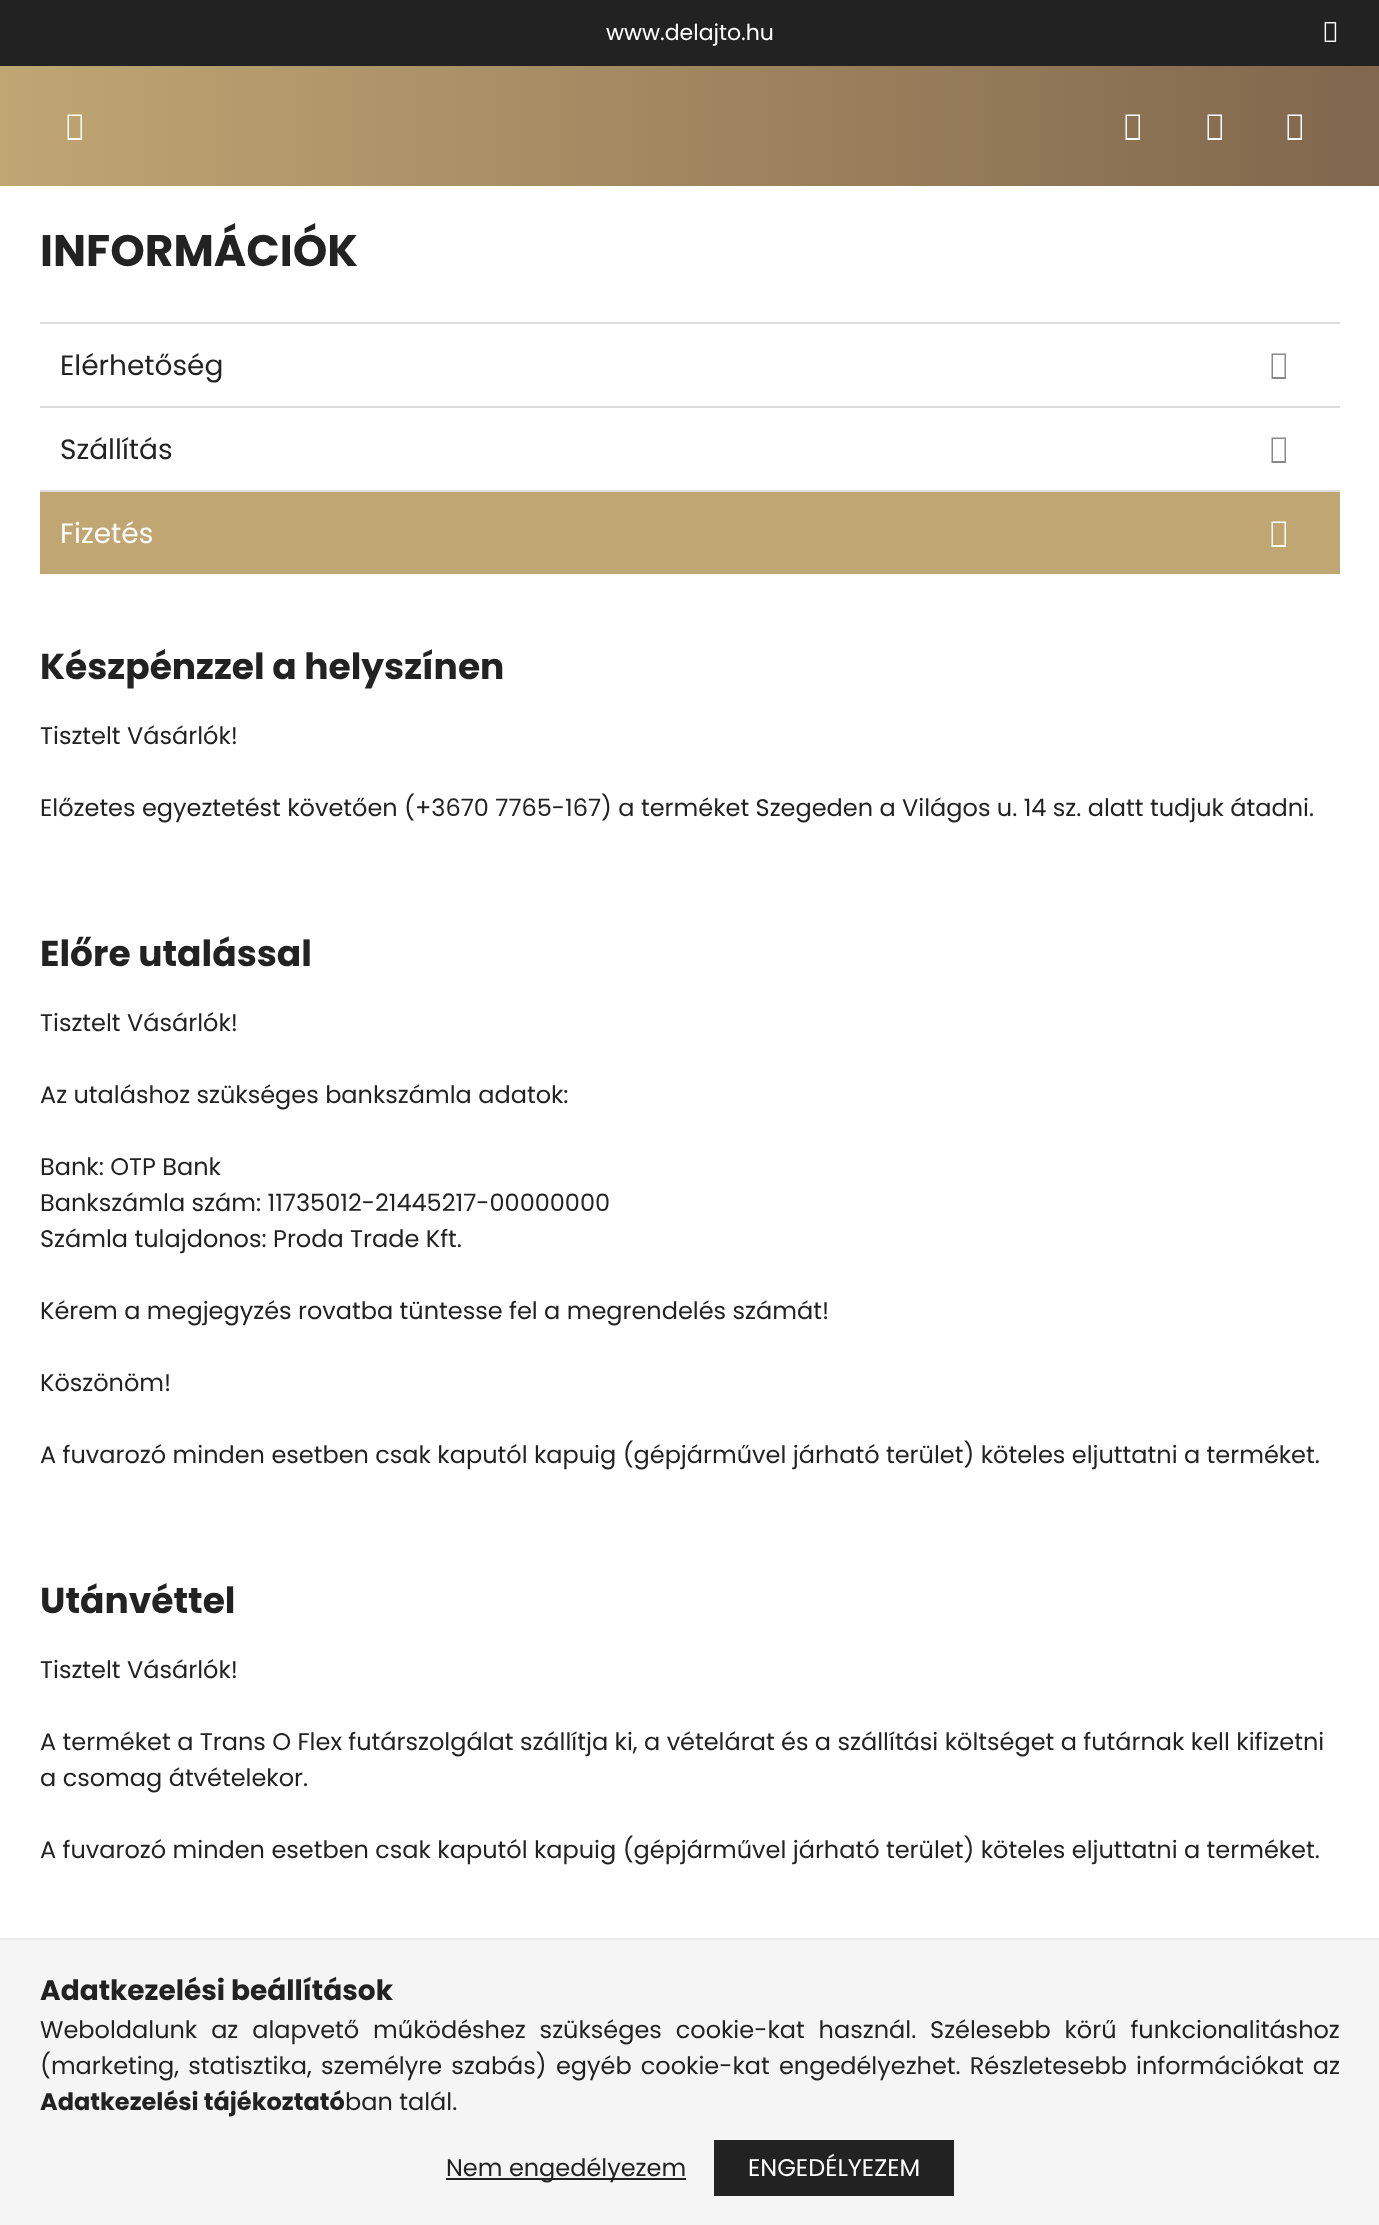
async function draw(canvas) {
	canvas.width = 1379;
	canvas.height = 2225;
	const c = canvas.getContext('2d');
	c.miterLimit = 4;
	c.fontKerning = 'normal';
	async function loadImage(src) {
		const img = new Image();
		img.src = src;
		await img.decode();
		return img;
	}
	let gradient;

	c.fillStyle = '#fff';
	c.fillRect(0, 0, 1379, 2225);
	c.fillStyle = '#222';
	c.fillRect(0, 0, 1379, 66);
	c.font = '22px Poppins';
	c.fillStyle = '#fff';
	c.fillText('www.delajto.hu', 606, 40);
	c.drawImage(await loadImage('img1.png'), 1324, 22, 13, 20);
	gradient = c.createLinearGradient(0, 126, 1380, 126);
	gradient.addColorStop(0, '#c0a673');
	gradient.addColorStop(1, '#80674d');
	c.fillStyle = gradient;
	c.fillRect(0, 66, 1379, 120);
	c.fillStyle = '#fff';
	c.beginPath();
	c.moveTo(67.5, 140);
	c.lineTo(67.5, 114.5);
	c.lineTo(82, 114.5);
	c.lineTo(82, 140);
	c.closePath();
	c.moveTo(69, 138);
	c.lineTo(80.5, 138);
	c.lineTo(80.5, 116);
	c.lineTo(69, 116);
	c.closePath();
	c.fill();
	c.beginPath();
	c.moveTo(1125.5, 140);
	c.lineTo(1125.5, 114.5);
	c.lineTo(1140, 114.5);
	c.lineTo(1140, 140);
	c.closePath();
	c.moveTo(1127, 138);
	c.lineTo(1138.5, 138);
	c.lineTo(1138.5, 116);
	c.lineTo(1127, 116);
	c.closePath();
	c.fill();
	c.beginPath();
	c.moveTo(1207.5, 140);
	c.lineTo(1207.5, 114.5);
	c.lineTo(1222, 114.5);
	c.lineTo(1222, 140);
	c.closePath();
	c.moveTo(1209, 138);
	c.lineTo(1220.5, 138);
	c.lineTo(1220.5, 116);
	c.lineTo(1209, 116);
	c.closePath();
	c.fill();
	c.beginPath();
	c.moveTo(1287.5, 140);
	c.lineTo(1287.5, 114.5);
	c.lineTo(1302, 114.5);
	c.lineTo(1302, 140);
	c.closePath();
	c.moveTo(1289, 138);
	c.lineTo(1300.5, 138);
	c.lineTo(1300.5, 116);
	c.lineTo(1289, 116);
	c.closePath();
	c.fill();
	c.font = 'bold 44px Poppins';
	c.fillStyle = '#222';
	c.fillText('INFORMÁCIÓK', 40, 266);
	c.fillStyle = '#ddd';
	c.fillRect(40, 322, 1300, 2);
	c.font = '28px Poppins';
	c.fillStyle = '#222';
	c.fillText('Elérhetőség', 60, 375);
	c.fillStyle = '#888';
	c.beginPath();
	c.moveTo(1271.5, 379);
	c.lineTo(1271.5, 353.5);
	c.lineTo(1286, 353.5);
	c.lineTo(1286, 379);
	c.closePath();
	c.moveTo(1273, 377);
	c.lineTo(1284.5, 377);
	c.lineTo(1284.5, 355);
	c.lineTo(1273, 355);
	c.closePath();
	c.fill();
	c.fillStyle = '#ddd';
	c.fillRect(40, 406, 1300, 2);
	c.fillStyle = '#222';
	c.fillText('Szállítás', 60, 459);
	c.fillStyle = '#888';
	c.beginPath();
	c.moveTo(1271.5, 463);
	c.lineTo(1271.5, 437.5);
	c.lineTo(1286, 437.5);
	c.lineTo(1286, 463);
	c.closePath();
	c.moveTo(1273, 461);
	c.lineTo(1284.5, 461);
	c.lineTo(1284.5, 439);
	c.lineTo(1273, 439);
	c.closePath();
	c.fill();
	c.fillStyle = '#c0a673';
	c.fillRect(40, 492, 1300, 82);
	c.fillStyle = '#ddd';
	c.fillRect(40, 490, 1300, 2);
	c.fillStyle = '#fff';
	c.fillText('Fizetés', 60, 543);
	c.beginPath();
	c.moveTo(1271.5, 547);
	c.lineTo(1271.5, 521.5);
	c.lineTo(1286, 521.5);
	c.lineTo(1286, 547);
	c.closePath();
	c.moveTo(1273, 545);
	c.lineTo(1284.5, 545);
	c.lineTo(1284.5, 523);
	c.lineTo(1273, 523);
	c.closePath();
	c.fill();
	c.font = 'bold 36px Poppins';
	c.fillStyle = '#222';
	c.fillText('Készpénzzel a helyszínen', 40, 679);
	c.font = '24px Poppins';
	c.fillText('Tisztelt Vásárlók!', 40, 744);
	c.fillText('Előzetes egyeztetést követően (+3670 7765-167) a terméket Szegeden a Világos u. 14 sz. alatt tudjuk átadni.', 40, 816);
	c.font = 'bold 36px Poppins';
	c.fillText('Előre utalással', 40, 966);
	c.font = '24px Poppins';
	for (const [text, x, y] of [
		['Tisztelt Vásárlók!', 40, 1031],
		['Az utaláshoz szükséges bankszámla adatok:', 40, 1103],
		['Bank: OTP Bank', 40, 1175],
		['Bankszámla szám: 11735012-21445217-00000000', 40, 1211],
		['Számla tulajdonos: Proda Trade Kft.', 40, 1247],
		['Kérem a megjegyzés rovatba tüntesse fel a megrendelés számát!', 40, 1319],
		['Köszönöm!', 40, 1391],
		['A fuvarozó minden esetben csak kaputól kapuig (gépjárművel járható terület) köteles eljuttatni a terméket.', 40, 1463],
	]) {
		c.fillText(text, x, y);
	}
	c.font = 'bold 36px Poppins';
	c.fillText('Utánvéttel', 40, 1613);
	c.font = '24px Poppins';
	for (const [text, x, y] of [
		['Tisztelt Vásárlók!', 40, 1678],
		['A terméket a Trans O Flex futárszolgálat szállítja ki, a vételárat és a szállítási költséget a futárnak kell kifizetni', 40, 1750],
		['a csomag átvételekor.', 40, 1786],
		['A fuvarozó minden esetben csak kaputól kapuig (gépjárművel járható terület) köteles eljuttatni a terméket.', 40, 1858],
	]) {
		c.fillText(text, x, y);
	}
	c.fillStyle = '#f5f5f5';
	c.fillRect(0, 1940, 1379, 285);
	c.fillStyle = '#eaeaea';
	c.fillRect(0, 1938, 1379, 2);
	c.font = 'bold 28px Poppins';
	c.fillStyle = '#222';
	c.fillText('Adatkezelési beállítások', 40, 2000);
	c.wordSpacing = '7.5px';
	c.font = '24px Poppins';
	c.fillText('Weboldalunk az alapvető működéshez szükséges cookie-kat használ. Szélesebb körű funkcionalitáshoz', 40, 2038);
	c.wordSpacing = '2.75px';
	c.fillText('(marketing, statisztika, személyre szabás) egyéb cookie-kat engedélyezhet. Részletesebb információkat az', 40, 2074);
	c.wordSpacing = '0px';
	c.font = 'bold 24px Poppins';
	c.fillText('Adatkezelési tájékoztató', 40, 2110);
	c.font = '24px Poppins';
	c.fillText('ban talál.', 345, 2110);
	c.fillRect(446, 2178, 240, 2);
	c.fillText('Nem engedélyezem', 446, 2176);
	gradient = c.createLinearGradient(234, 2168, 954, 2168);
	gradient.addColorStop(0, '#c0a673');
	gradient.addColorStop(0.33, '#80674d');
	gradient.addColorStop(0.67, '#222');
	gradient.addColorStop(1, '#222');
	c.fillStyle = gradient;
	c.fillRect(714, 2140, 240, 56);
	c.fillStyle = '#fff';
	c.fillText('ENGEDÉLYEZEM', 748, 2176);
}

draw(document.querySelector('canvas'));
